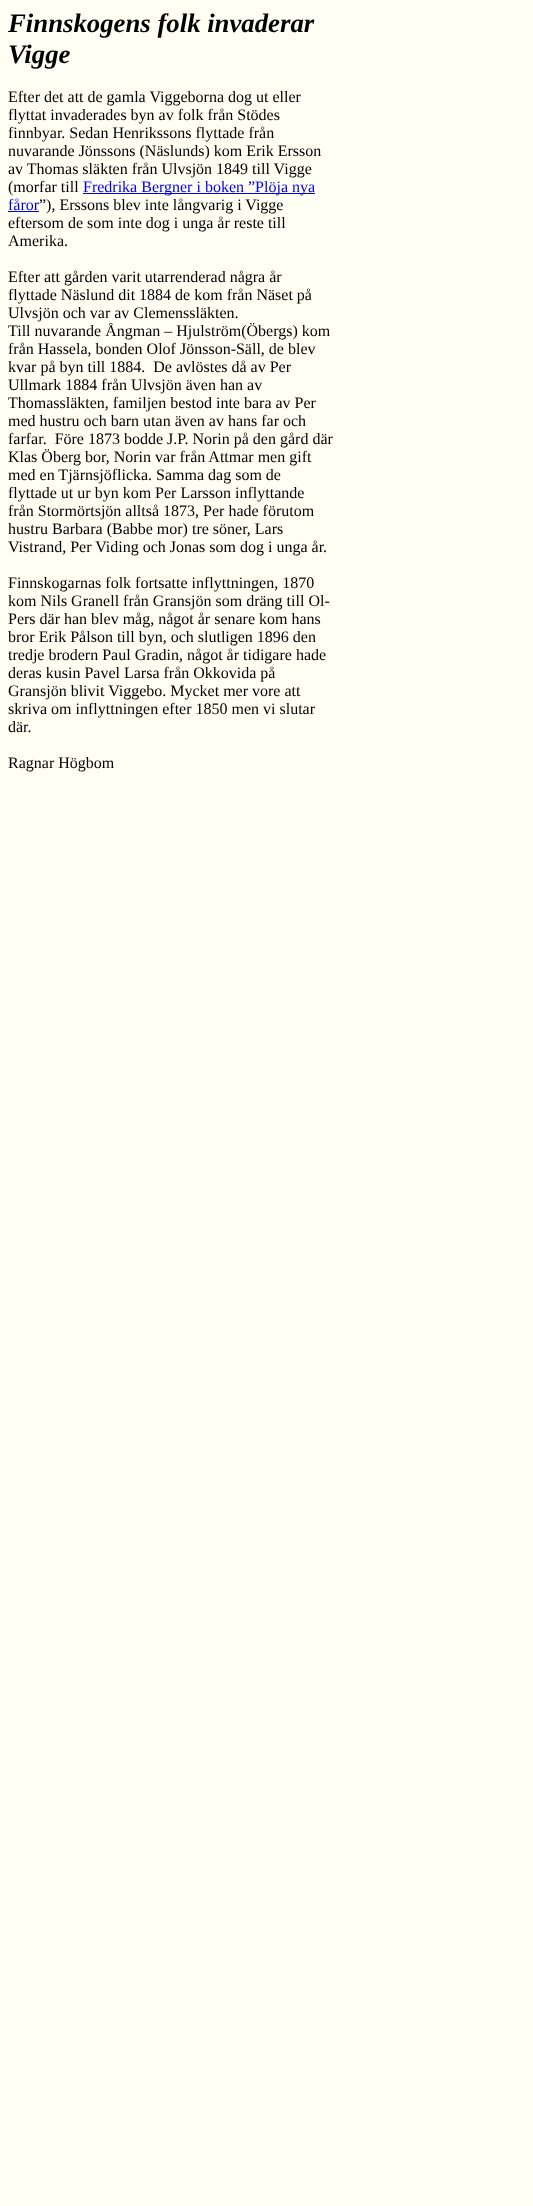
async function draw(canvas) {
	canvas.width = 533;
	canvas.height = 2206;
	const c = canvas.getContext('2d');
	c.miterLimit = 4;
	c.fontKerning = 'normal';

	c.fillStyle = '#fffff3';
	c.fillRect(0, 0, 533, 2206);
	c.font = 'italic bold 26.75px Liberation Serif';
	c.fillStyle = '#000';
	c.fillText('Finnskogens folk invaderar', 8, 32);
	c.fillText('Vigge', 8, 63);
	c.font = '16px Liberation Serif';
	for (const [text, x, y] of [
		['Efter det att de gamla Viggeborna dog ut eller', 8, 102],
		['flyttat invaderades byn av folk från Stödes', 8, 120],
		['finnbyar. Sedan Henrikssons flyttade från', 8, 138],
		['nuvarande Jönssons (Näslunds) kom Erik Ersson', 8, 156],
		['av Thomas släkten från Ulvsjön 1849 till Vigge', 8, 174],
		['(morfar till', 8, 192],
	]) {
		c.fillText(text, x, y);
	}
	c.fillStyle = '#00e';
	c.fillRect(83, 193, 232, 1);
	c.fillText('Fredrika Bergner i boken ”Plöja nya', 83, 192);
	c.fillText('fåror', 8, 210);
	c.fillStyle = '#000';
	c.fillText('”), Erssons blev inte långvarig i Vigge', 39, 210);
	c.fillStyle = '#00e';
	c.fillRect(8, 211, 31, 1);
	c.fillStyle = '#000';
	for (const [text, x, y] of [
		['eftersom de som inte dog i unga år reste till', 8, 228],
		['Amerika.', 8, 246],
		['Efter att gården varit utarrenderad några år', 8, 282],
		['flyttade Näslund dit 1884 de kom från Näset på', 8, 300],
		['Ulvsjön och var av Clemenssläkten.', 8, 318],
		['Till nuvarande Ångman – Hjulström(Öbergs) kom', 8, 336],
		['från Hassela, bonden Olof Jönsson-Säll, de blev', 8, 354],
		['kvar på byn till 1884.  De avlöstes då av Per', 8, 372],
		['Ullmark 1884 från Ulvsjön även han av', 8, 390],
		['Thomassläkten, familjen bestod inte bara av Per', 8, 408],
		['med hustru och barn utan även av hans far och', 8, 426],
		['farfar.  Före 1873 bodde J.P. Norin på den gård där', 8, 444],
		['Klas Öberg bor, Norin var från Attmar men gift', 8, 462],
		['med en Tjärnsjöflicka. Samma dag som de', 8, 480],
		['flyttade ut ur byn kom Per Larsson inflyttande', 8, 498],
		['från Stormörtsjön alltså 1873, Per hade förutom', 8, 516],
		['hustru Barbara (Babbe mor) tre söner, Lars', 8, 534],
		['Vistrand, Per Viding och Jonas som dog i unga år.', 8, 552],
		['Finnskogarnas folk fortsatte inflyttningen, 1870', 8, 588],
		['kom Nils Granell från Gransjön som dräng till Ol-', 8, 606],
		['Pers där han blev måg, något år senare kom hans', 8, 624],
		['bror Erik Pålson till byn, och slutligen 1896 den', 8, 642],
		['tredje brodern Paul Gradin, något år tidigare hade', 8, 660],
		['deras kusin Pavel Larsa från Okkovida på', 8, 678],
		['Gransjön blivit Viggebo. Mycket mer vore att', 8, 696],
		['skriva om inflyttningen efter 1850 men vi slutar', 8, 714],
		['där.', 8, 732],
		['Ragnar Högbom', 8, 768],
	]) {
		c.fillText(text, x, y);
	}
}

draw(document.querySelector('canvas'));
